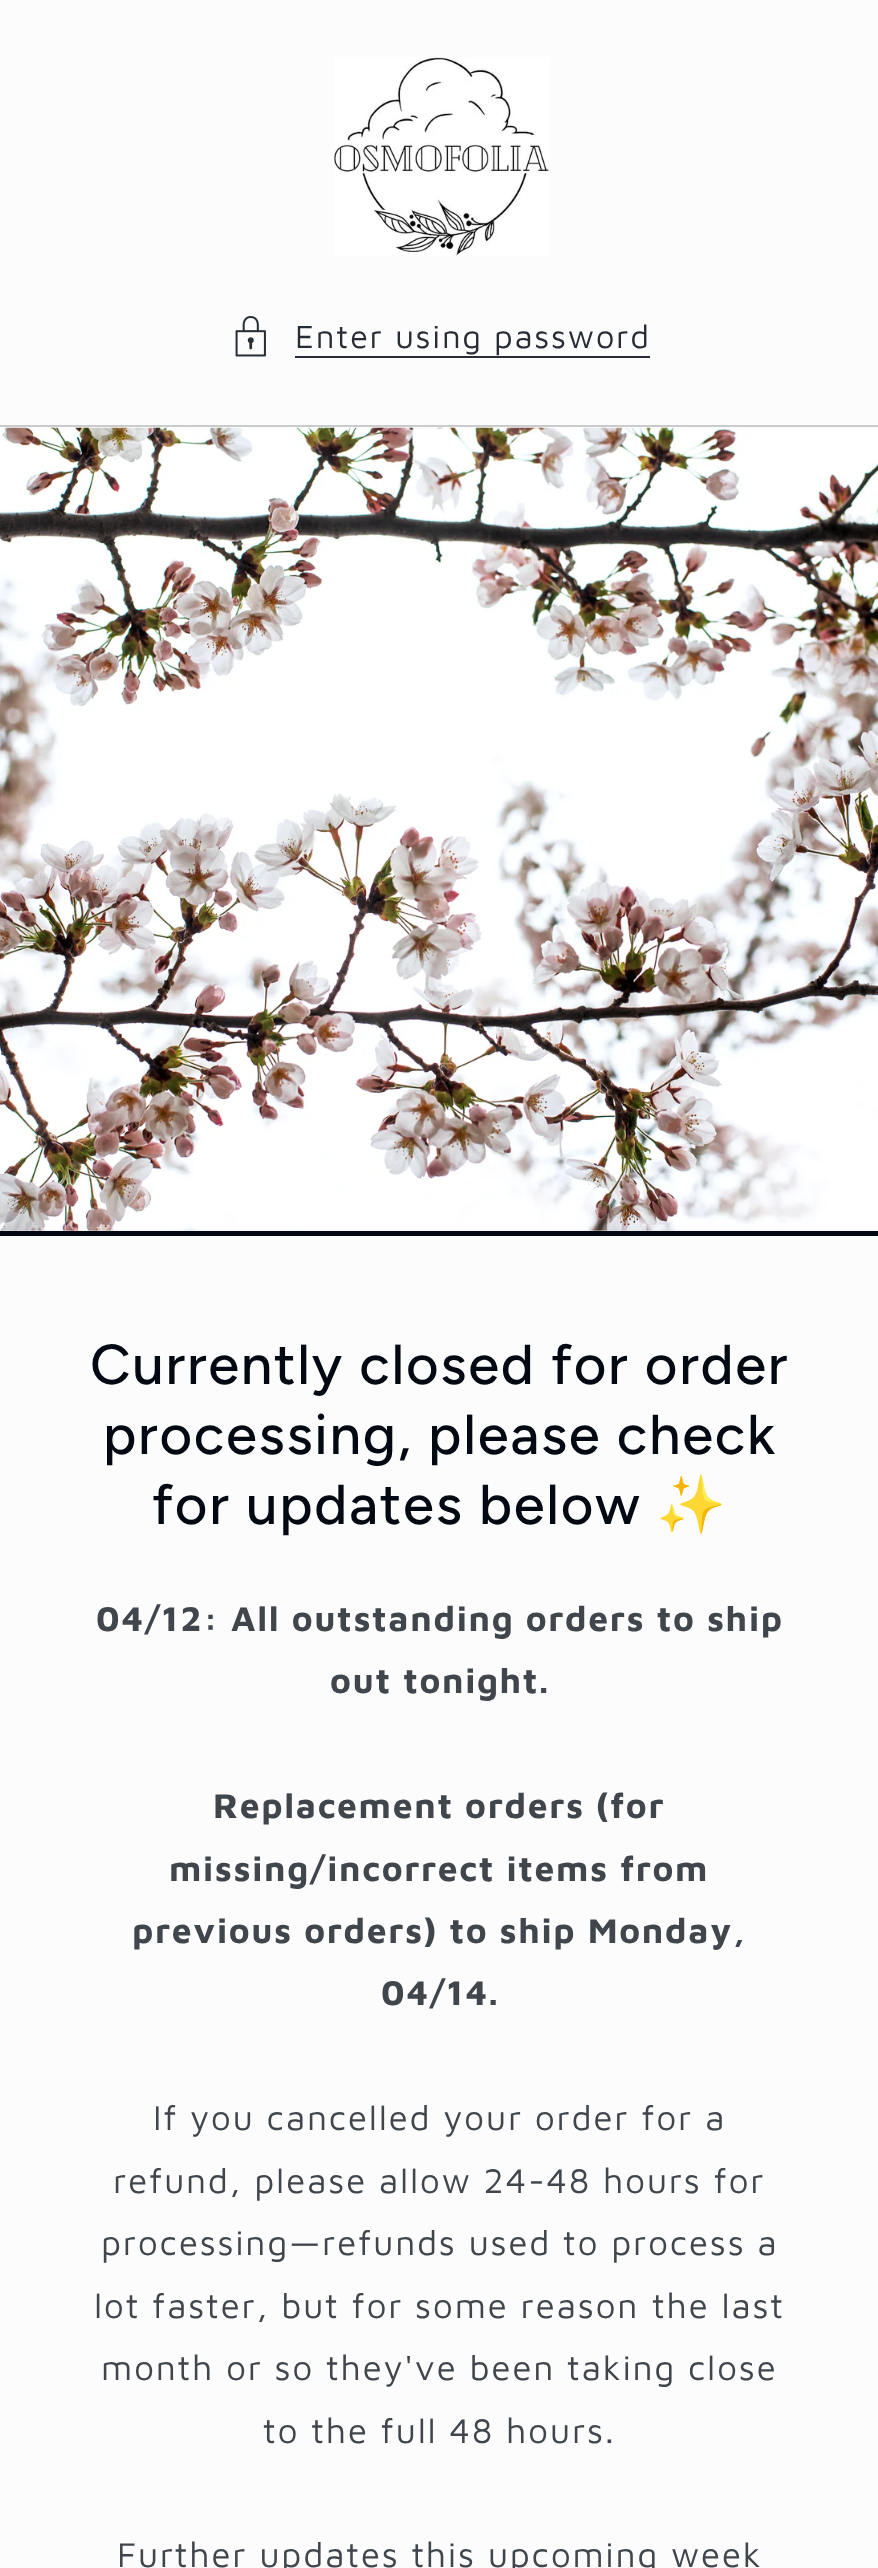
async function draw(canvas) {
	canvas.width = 878;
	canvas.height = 2568;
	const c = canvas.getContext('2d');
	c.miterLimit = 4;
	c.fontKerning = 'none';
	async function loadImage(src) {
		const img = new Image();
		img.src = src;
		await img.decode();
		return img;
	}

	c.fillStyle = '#fcfcfc';
	c.fillRect(0, 0, 878, 2568);
	c.drawImage(await loadImage('img1.png'), 334, 57, 215, 199);
	c.drawImage(await loadImage('img2.png'), 235, 316, 31, 41);
	c.letterSpacing = '1.65px';
	c.font = '33px Maven Pro';
	c.fillStyle = '#282d35';
	c.fillText('Enter using password', 295, 348);
	for (const [x, y, w, h, color] of [
		[295, 356, 355, 2, '#282d35'],
		[0, 425, 878, 2, '#cacbcd'],
		[0, 1230, 878, 1, '#e5e6e7'],
	]) {
		c.fillStyle = color;
		c.fillRect(x, y, w, h);
	}
	c.drawImage(await loadImage('img3.png'), 0, 427, 878, 804);
	c.fillStyle = '#020912';
	c.fillRect(0, 1231, 878, 5);
	c.letterSpacing = '1.7px';
	c.font = '500 56.25px Figtree';
	for (const [text, x, y] of [
		['Currently closed for order', 90, 1384],
		['processing, please check', 103, 1454],
		['for updates below', 152, 1524],
	]) {
		c.fillText(text, x, y);
	}
	c.font = '56.25px Noto Color Emoji';
	c.fillText('✨', 656, 1524);
	c.letterSpacing = '1.65px';
	c.font = 'bold 35.4px Maven Pro';
	c.fillStyle = '#41464d';
	for (const [text, x, y] of [
		['04/12: All outstanding orders to ship', 96, 1631],
		['out tonight.', 330, 1693],
		['Replacement orders (for', 213, 1818],
		['missing/incorrect items from', 169, 1881],
		['previous orders) to ship Monday,', 132, 1943],
		['04/14.', 381, 2005],
	]) {
		c.fillText(text, x, y);
	}
	c.font = '35.4px Maven Pro';
	for (const [text, x, y] of [
		['If you cancelled your order for a', 153, 2130],
		['refund, please allow 24-48 hours for', 113, 2193],
		['processing—refunds used to process a', 101, 2255],
		['lot faster, but for some reason', 94, 2318],
		['the last', 652, 2318],
		['month or so they\'ve been taking close', 101, 2380],
		['to the full 48 hours.', 263, 2443],
		['Further updates this upcoming week', 117, 2567],
	]) {
		c.fillText(text, x, y);
	}
}

draw(document.querySelector('canvas'));
